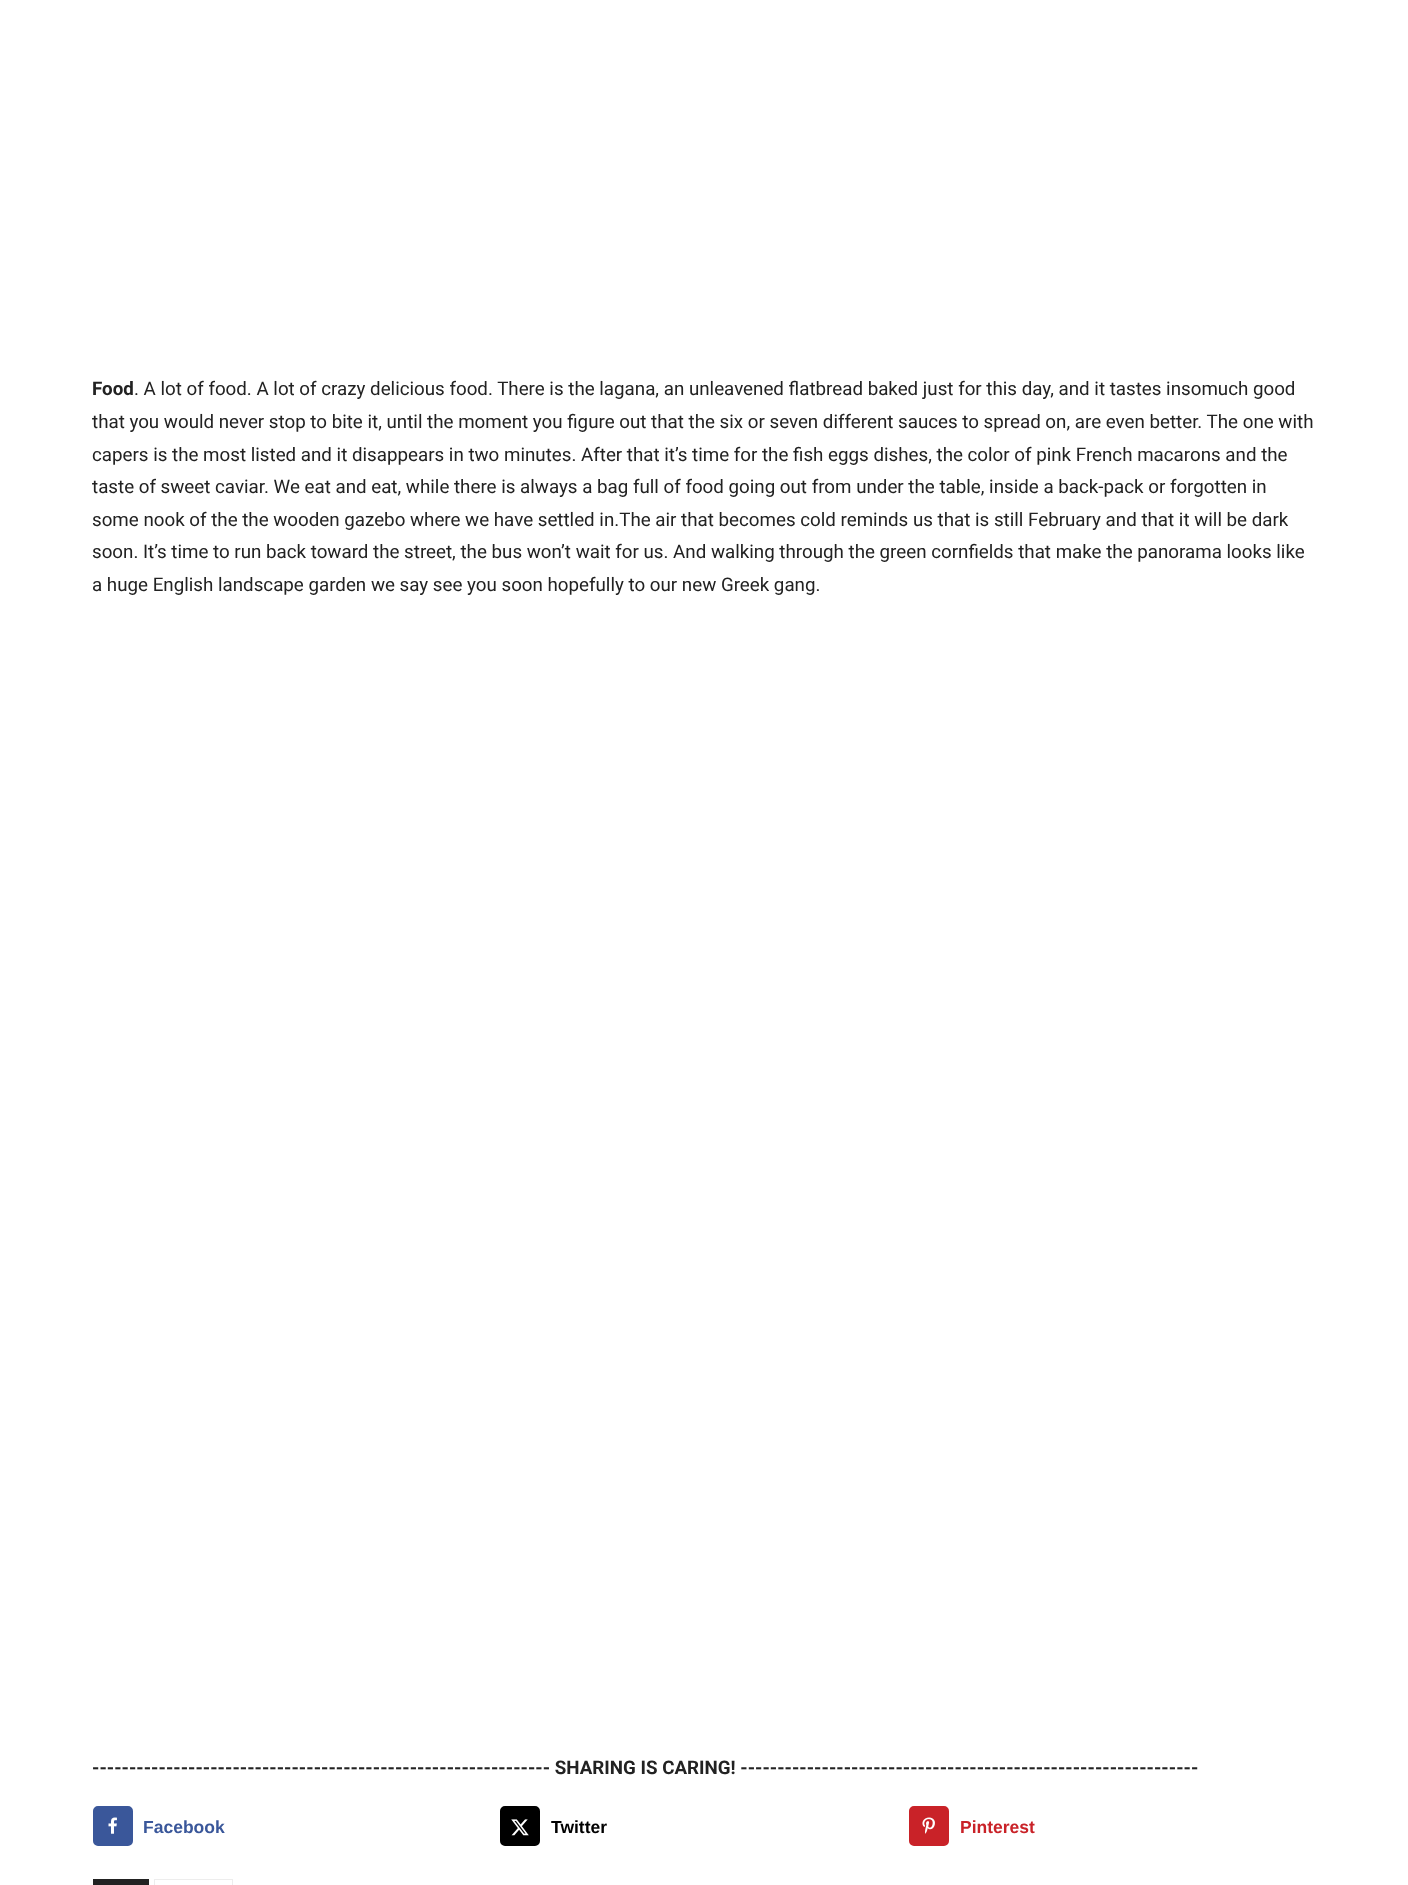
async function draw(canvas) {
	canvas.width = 1408;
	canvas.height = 1885;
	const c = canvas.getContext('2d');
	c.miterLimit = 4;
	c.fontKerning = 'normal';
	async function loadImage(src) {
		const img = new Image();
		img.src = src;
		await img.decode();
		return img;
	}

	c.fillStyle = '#fff';
	c.fillRect(0, 0, 1408, 1885);
	c.font = 'bold 18.75px Roboto';
	c.fillStyle = '#222';
	c.fillText('Food', 92, 395);
	c.font = '18.75px Roboto';
	for (const [text, x, y] of [
		['. A lot of food. A lot of crazy delicious food. There is the lagana, an unleavened flatbread baked just for this day, and it tastes insomuch good', 134, 395],
		['that you would never stop to bite it, until the moment you figure out that the six or seven different sauces to spread on, are even better. The one with', 92, 428],
		['capers is the most listed and it disappears in two minutes. After that it’s time for the fish eggs dishes, the color of pink French macarons and the', 92, 461],
		['taste of sweet caviar. We eat and eat, while there is always a bag full of food going out from under the table, inside a back-pack or forgotten in', 92, 493],
		['some nook of the the wooden gazebo where we have settled in.The air that becomes cold reminds us that is still February and that it will be dark', 92, 526],
		['soon. It’s time to run back toward the street, the bus won’t wait for us. And walking through the green cornfields that make the panorama looks like', 92, 558],
		['a huge English landscape garden we say see you soon hopefully to our new Greek gang.', 92, 591],
	]) {
		c.fillText(text, x, y);
	}
	c.font = 'bold 18.75px Roboto';
	c.fillText('-------------------------------------------------------------- SHARING IS CARING! --------------------------------------------------------------', 92, 1774);
	c.fillStyle = '#3a579a';
	c.beginPath();
	c.roundRect(94.5, 1807.5, 37, 37, 3.5);
	c.fill();
	c.strokeStyle = '#3a579a';
	c.lineWidth = 3;
	c.stroke();
	c.drawImage(await loadImage('img1.png'), 108, 1817, 9, 17);
	c.font = 'bold 17.5px Liberation Sans';
	c.fillText('Facebook', 143, 1833);
	c.fillStyle = '#000';
	c.beginPath();
	c.roundRect(501.5, 1807.5, 37, 37, 3.5);
	c.fill();
	c.strokeStyle = '#000';
	c.stroke();
	c.drawImage(await loadImage('img2.png'), 511, 1819, 18, 17);
	c.fillText('Twitter', 551, 1833);
	c.fillStyle = '#c92228';
	c.beginPath();
	c.roundRect(910.5, 1807.5, 37, 37, 3.5);
	c.fill();
	c.strokeStyle = '#c92228';
	c.stroke();
	c.drawImage(await loadImage('img3.png'), 922, 1817, 13, 17);
	c.fillText('Pinterest', 960, 1833);
	c.fillStyle = '#222';
	c.fillRect(93, 1879, 56, 6);
	c.strokeStyle = '#ededed';
	c.lineWidth = 1;
	c.strokeRect(154.5, 1879.5, 78, 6);
}

draw(document.querySelector('canvas'));
